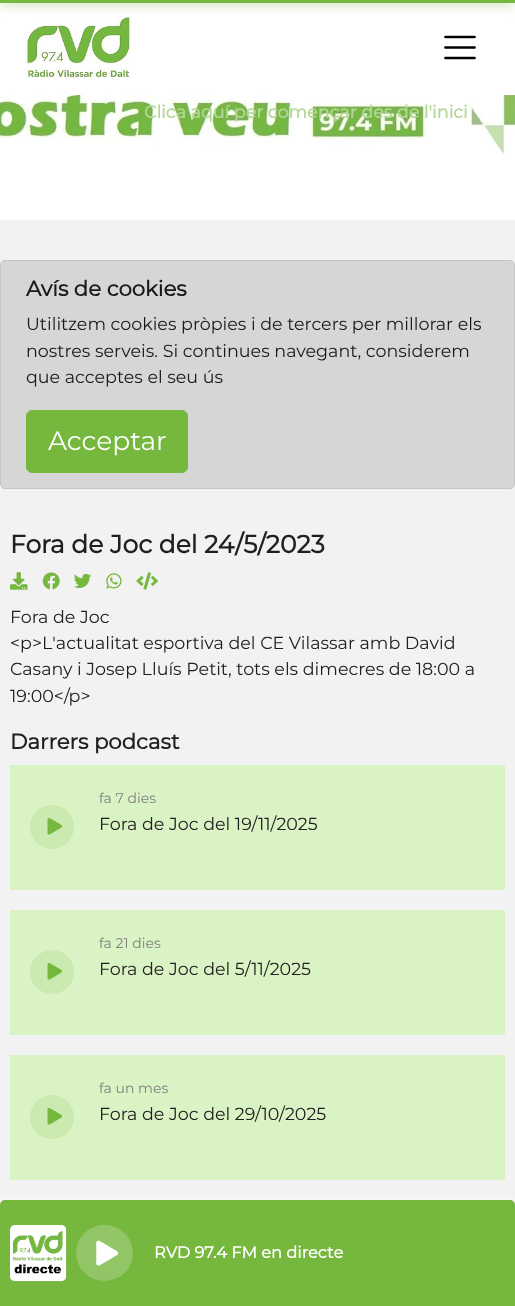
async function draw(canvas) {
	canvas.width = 515;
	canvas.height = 1306;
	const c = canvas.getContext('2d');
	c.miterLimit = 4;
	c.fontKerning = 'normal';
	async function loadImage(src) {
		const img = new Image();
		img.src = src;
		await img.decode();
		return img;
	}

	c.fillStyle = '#f2f2f2';
	c.fillRect(0, 0, 515, 1306);
	c.fillStyle = '#fff';
	c.fillRect(0, 3, 515, 92);
	c.drawImage(await loadImage('img2.png'), 25, 16, 106, 63);
	c.fillStyle = '#76b73e';
	c.filter = 'blur(6px)';
	c.beginPath();
	c.rect(0, 0, 515, 3);
	c.fill();
	c.filter = 'none';
	c.fillRect(0, 0, 515, 3);
	c.drawImage(await loadImage('img1.png'), 0, 95, 515, 125);
	c.beginPath();
	c.moveTo(445.5, 37);
	c.lineTo(474.5, 37);
	c.moveTo(445.5, 47.5);
	c.lineTo(474.5, 47.5);
	c.moveTo(445.5, 58);
	c.lineTo(474.5, 58);
	c.strokeStyle = '#000';
	c.lineWidth = 2.7;
	c.lineCap = 'round';
	c.stroke();
	c.font = 'bold 17.5px Montserrat';
	c.fillStyle = '#b4d798';
	c.fillText('Clica aquí per començar des de l\'inici', 144, 118);
	c.fillStyle = '#d6d6d6';
	c.beginPath();
	c.roundRect(0.5, 260.5, 514, 228, 4.5);
	c.fill();
	c.strokeStyle = '#c5c5c5';
	c.lineWidth = 1;
	c.stroke();
	c.font = 'bold 21.25px Montserrat';
	c.fillStyle = '#191919';
	c.fillText('Avís de cookies', 26, 296);
	c.font = '100 17.5px Montserrat';
	for (const [text, x, y] of [
		['Utilitzem cookies pròpies i de tercers per millorar els', 26, 330],
		['nostres serveis. Si continues navegant, considerem', 26, 357],
		['que acceptes el seu ús', 26, 383],
	]) {
		c.fillText(text, x, y);
	}
	c.fillStyle = '#76b73e';
	c.beginPath();
	c.roundRect(26.5, 410.5, 161, 62, 5.5);
	c.fill();
	c.strokeStyle = '#76b73e';
	c.stroke();
	c.font = '100 26.5px Montserrat';
	c.fillStyle = '#fff';
	c.fillText('Acceptar', 48, 450);
	c.font = 'bold 25px Montserrat';
	c.fillStyle = '#202020';
	c.fillText('Fora de Joc del 24/5/2023', 10, 553);
	c.drawImage(await loadImage('img3.png'), 10, 572, 18, 18);
	c.drawImage(await loadImage('img4.png'), 42, 572, 18, 18);
	c.drawImage(await loadImage('img5.png'), 74, 573, 18, 16);
	c.drawImage(await loadImage('img6.png'), 106, 573, 16, 16);
	c.drawImage(await loadImage('img7.png'), 136, 572, 23, 18);
	c.font = '100 17.5px Montserrat';
	for (const [text, x, y] of [
		['Fora de Joc', 10, 623],
		['<p>L\'actualitat esportiva del CE Vilassar amb David', 10, 649],
		['Casany i Josep Lluís Petit, tots els dimecres de 18:00 a', 10, 675],
		['19:00<\/p>', 10, 702],
	]) {
		c.fillText(text, x, y);
	}
	c.font = 'bold 21.25px Montserrat';
	c.fillText('Darrers podcast', 10, 749);
	c.fillStyle = '#d9f3c4';
	c.fillRect(10, 765, 495, 125);
	c.fillStyle = '#caeab0';
	c.beginPath();
	c.arc(52, 827, 22, 0, 2 * Math.PI);
	c.fill();
	c.drawImage(await loadImage('img8.png'), 47, 818, 15, 17);
	c.font = '100 14px Montserrat';
	c.fillStyle = '#808080';
	c.fillText('fa 7 dies', 99, 803);
	c.font = '100 17.5px Montserrat';
	c.fillStyle = '#202020';
	c.fillText('Fora de Joc del 19/11/2025', 99, 830);
	c.fillStyle = '#d9f3c4';
	c.fillRect(10, 910, 495, 125);
	c.fillStyle = '#caeab0';
	c.beginPath();
	c.arc(52, 972, 22, 0, 2 * Math.PI);
	c.fill();
	c.drawImage(await loadImage('img8.png'), 47, 963, 15, 17);
	c.font = '100 14px Montserrat';
	c.fillStyle = '#808080';
	c.fillText('fa 21 dies', 99, 948);
	c.font = '100 17.5px Montserrat';
	c.fillStyle = '#202020';
	c.fillText('Fora de Joc del 5/11/2025', 99, 975);
	c.fillStyle = '#d9f3c4';
	c.fillRect(10, 1055, 495, 125);
	c.fillStyle = '#caeab0';
	c.beginPath();
	c.arc(52, 1117, 22, 0, 2 * Math.PI);
	c.fill();
	c.drawImage(await loadImage('img8.png'), 47, 1108, 15, 17);
	c.font = '100 14px Montserrat';
	c.fillStyle = '#808080';
	c.fillText('fa un mes', 99, 1093);
	c.font = '100 17.5px Montserrat';
	c.fillStyle = '#202020';
	c.fillText('Fora de Joc del 29/10/2025', 99, 1120);
	c.fillStyle = '#fff';
	c.filter = 'blur(5px)';
	c.beginPath();
	c.roundRect(0, 1200, 515, 106, 5);
	c.fill();
	c.filter = 'none';
	c.fillStyle = '#76b73e';
	c.beginPath();
	c.roundRect(0, 1200, 515, 106, [5, 5, 0, 0]);
	c.fill();
	c.drawImage(await loadImage('img9.png'), 10, 1225, 57, 57);
	c.fillStyle = '#91c565';
	c.beginPath();
	c.roundRect(76, 1225, 57, 56, 28);
	c.fill();
	c.drawImage(await loadImage('img10.png'), 96, 1240, 23, 26);
	c.font = 'bold 16.25px Montserrat';
	c.fillStyle = '#fff';
	c.fillText('RVD 97.4 FM en directe', 154, 1258);
}

draw(document.querySelector('canvas'));
